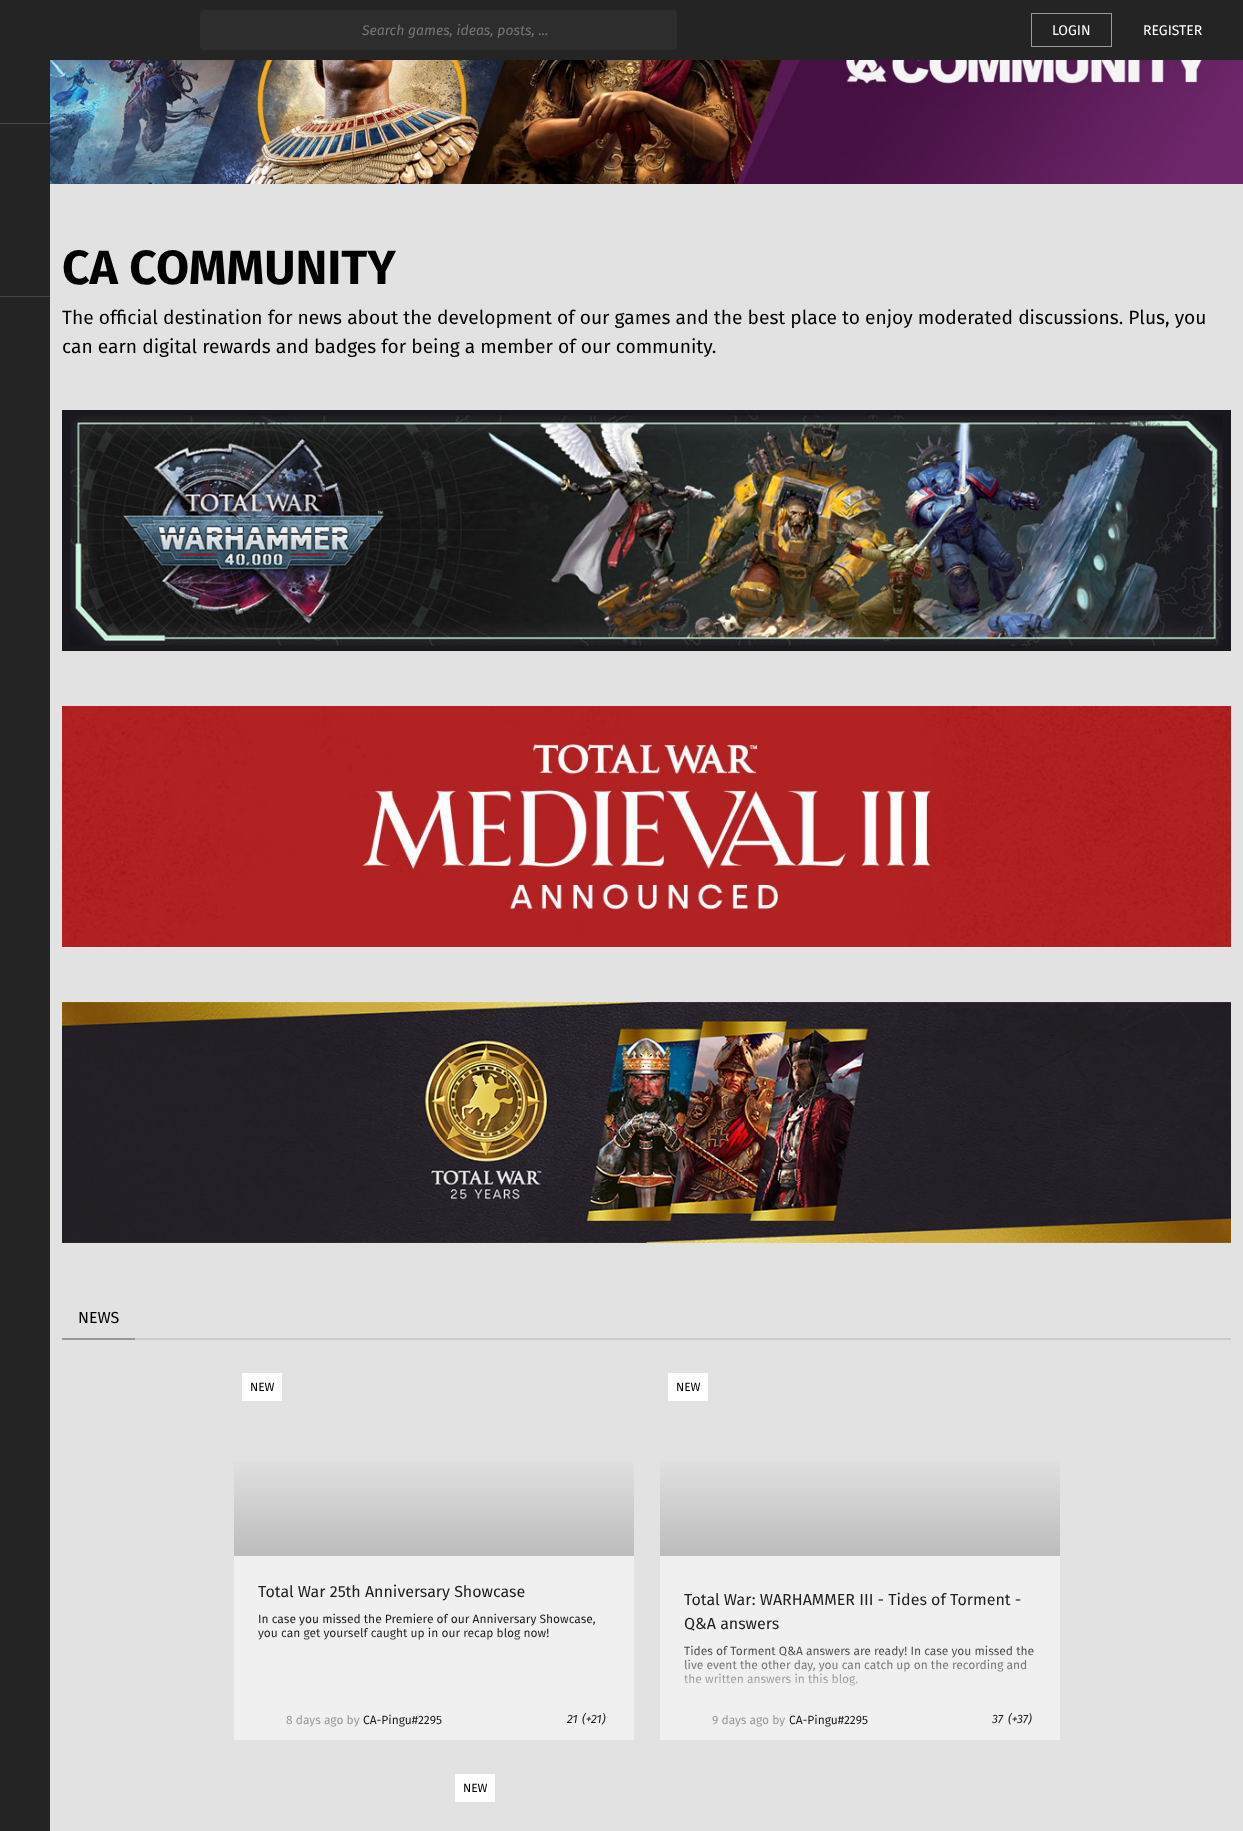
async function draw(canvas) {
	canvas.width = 1243;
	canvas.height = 1831;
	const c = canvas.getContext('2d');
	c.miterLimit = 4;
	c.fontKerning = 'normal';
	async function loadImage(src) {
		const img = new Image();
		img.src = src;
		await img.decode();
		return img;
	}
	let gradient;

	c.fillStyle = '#e2e2e2';
	c.fillRect(0, 0, 1243, 1831);
	c.fillStyle = '#242424';
	c.fillRect(0, 0, 1243, 60);
	c.fillStyle = '#2d2d2d';
	c.beginPath();
	c.roundRect(200, 10, 34, 40, [4, 0, 0, 4]);
	c.fill();
	c.beginPath();
	c.roundRect(234, 10, 443, 40, [0, 4, 4, 0]);
	c.fill();
	c.font = 'italic 14px Fira Sans';
	c.fillStyle = '#757575';
	c.fillText('Search games, ideas, posts, ...', 362, 35);
	c.strokeStyle = '#999';
	c.strokeRect(1031.5, 13.5, 80, 33);
	c.font = '14px Fira Sans';
	c.fillStyle = '#fff';
	c.fillText('LOGIN', 1052, 35);
	c.fillText('REGISTER', 1143, 35);
	for (const [x, y, w, h, color] of [
		[0, 60, 50, 1771, '#242424'],
		[0, 123, 50, 1, '#464545'],
		[0, 296, 50, 1, '#464545'],
	]) {
		c.fillStyle = color;
		c.fillRect(x, y, w, h);
	}
	c.drawImage(await loadImage('img1.png'), 50, 60, 1193, 124);
	c.font = 'bold 48px Fira Sans';
	c.fillStyle = '#000';
	c.fillText('CA COMMUNITY', 62, 284);
	c.font = '19.2px Fira Sans';
	c.fillText('The official destination for news about the development of our games and the best place to enjoy moderated discussions. Plus, you', 62, 324);
	c.fillText('can earn digital rewards and badges for being a member of our community.', 62, 353);
	c.drawImage(await loadImage('img2.png'), 62, 410, 1169, 241);
	c.drawImage(await loadImage('img3.png'), 62, 706, 1169, 241);
	c.drawImage(await loadImage('img4.png'), 62, 1002, 1169, 241);
	c.fillStyle = '#999';
	c.fillRect(62, 1338, 73, 2);
	c.font = '16px Fira Sans';
	c.fillStyle = '#000';
	c.fillText('NEWS', 78, 1323);
	for (const [x, y, w, h, color] of [
		[135, 1338, 1096, 2, '#ccc'],
		[234, 1556, 400, 184, '#f0f0f0'],
		[242, 1373, 40, 28, '#fff'],
	]) {
		c.fillStyle = color;
		c.fillRect(x, y, w, h);
	}
	c.font = '12px Fira Sans';
	c.fillStyle = '#000';
	c.fillText('NEW', 250, 1391);
	gradient = c.createLinearGradient(434, 1365, 434, 1556);
	gradient.addColorStop(0.5, '#e0e0e0');
	gradient.addColorStop(1, '#bcbcbc');
	c.fillStyle = gradient;
	c.fillRect(234, 1462, 400, 94);
	c.font = '16px Fira Sans';
	c.fillStyle = '#1e1e1e';
	c.fillText('Total War 25th Anniversary Showcase', 258, 1597);
	c.font = '12px Fira Sans';
	c.fillText('In case you missed the Premiere of our Anniversary Showcase,', 258, 1623);
	c.fillText('you can get yourself caught up in our recap blog now!', 258, 1637);
	gradient = c.createLinearGradient(434, 1556, 434, 1700);
	gradient.addColorStop(0.52, '#f0f0f000');
	gradient.addColorStop(1, '#f0f0f0');
	c.fillStyle = gradient;
	c.fillRect(258, 1632, 290, 8);
	c.fillStyle = '#999';
	c.fillText('8 days ago by', 286, 1724);
	c.fillStyle = '#1e1e1e';
	c.fillText('CA-Pingu#2295', 363, 1724);
	c.font = 'italic 12px Fira Sans';
	c.fillText('21', 567, 1723);
	c.fillText('(+21)', 582, 1723);
	c.fillStyle = '#f0f0f0';
	c.fillRect(660, 1556, 400, 184);
	c.fillStyle = '#fff';
	c.fillRect(668, 1373, 40, 28);
	c.font = '12px Fira Sans';
	c.fillStyle = '#000';
	c.fillText('NEW', 676, 1391);
	gradient = c.createLinearGradient(860, 1365, 860, 1556);
	gradient.addColorStop(0.5, '#e0e0e0');
	gradient.addColorStop(1, '#bcbcbc');
	c.fillStyle = gradient;
	c.fillRect(660, 1462, 400, 94);
	c.font = '16px Fira Sans';
	c.fillStyle = '#1e1e1e';
	c.fillText('Total War: WARHAMMER III - Tides of Torment -', 684, 1605);
	c.fillText('Q&A answers', 684, 1629);
	c.font = '12px Fira Sans';
	for (const [text, x, y] of [
		['Tides of Torment Q&A answers are ready! In case you missed the', 684, 1655],
		['live event the other day, you can catch up on the recording and', 684, 1669],
		['the written answers in this blog.', 684, 1683],
	]) {
		c.fillText(text, x, y);
	}
	gradient = c.createLinearGradient(860, 1556, 860, 1708);
	gradient.addColorStop(0.52, '#f0f0f000');
	gradient.addColorStop(1, '#f0f0f0');
	c.fillStyle = gradient;
	c.fillRect(683, 1645, 350, 41);
	c.fillStyle = '#999';
	c.fillText('9 days ago by', 712, 1724);
	c.fillStyle = '#1e1e1e';
	c.fillText('CA-Pingu#2295', 789, 1724);
	c.font = 'italic 12px Fira Sans';
	c.fillText('37', 992, 1723);
	c.fillText('(+37)', 1008, 1723);
	c.fillStyle = '#fff';
	c.fillRect(455, 1774, 40, 28);
	c.font = '12px Fira Sans';
	c.fillStyle = '#000';
	c.fillText('NEW', 463, 1792);
}

draw(document.querySelector('canvas'));
